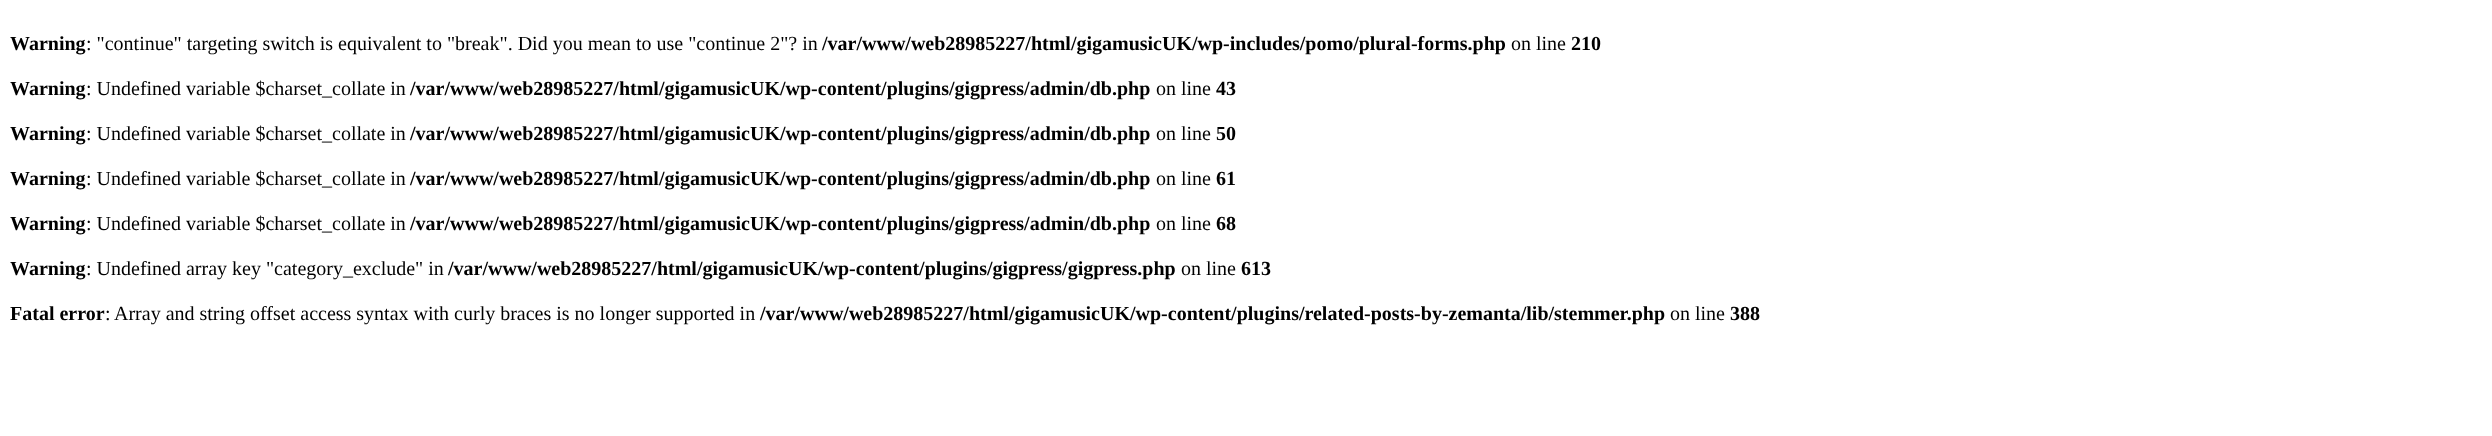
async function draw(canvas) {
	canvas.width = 2492;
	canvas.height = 436;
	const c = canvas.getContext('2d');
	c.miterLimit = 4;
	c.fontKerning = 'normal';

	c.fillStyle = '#fff';
	c.fillRect(0, 0, 2492, 436);
	c.font = 'bold 20px Liberation Serif';
	c.fillStyle = '#000';
	c.fillText('Warning', 10, 50);
	c.font = '20px Liberation Serif';
	c.fillText(': "continue" targeting switch is equivalent to "break". Did you mean to use "continue 2"? in', 86, 50);
	c.font = 'bold 20px Liberation Serif';
	c.fillText('/var/www/web28985227/html/gigamusicUK/wp-includes/pomo/plural-forms.php', 822, 50);
	c.font = '20px Liberation Serif';
	c.fillText('on line', 1511, 50);
	c.font = 'bold 20px Liberation Serif';
	c.fillText('210', 1571, 50);
	c.fillText('Warning', 10, 95);
	c.font = '20px Liberation Serif';
	c.fillText(': Undefined variable $charset_collate in', 86, 95);
	c.font = 'bold 20px Liberation Serif';
	c.fillText('/var/www/web28985227/html/gigamusicUK/wp-content/plugins/gigpress/admin/db.php', 410, 95);
	c.font = '20px Liberation Serif';
	c.fillText('on line', 1156, 95);
	c.font = 'bold 20px Liberation Serif';
	c.fillText('43', 1216, 95);
	c.fillText('Warning', 10, 140);
	c.font = '20px Liberation Serif';
	c.fillText(': Undefined variable $charset_collate in', 86, 140);
	c.font = 'bold 20px Liberation Serif';
	c.fillText('/var/www/web28985227/html/gigamusicUK/wp-content/plugins/gigpress/admin/db.php', 410, 140);
	c.font = '20px Liberation Serif';
	c.fillText('on line', 1156, 140);
	c.font = 'bold 20px Liberation Serif';
	c.fillText('50', 1216, 140);
	c.fillText('Warning', 10, 185);
	c.font = '20px Liberation Serif';
	c.fillText(': Undefined variable $charset_collate in', 86, 185);
	c.font = 'bold 20px Liberation Serif';
	c.fillText('/var/www/web28985227/html/gigamusicUK/wp-content/plugins/gigpress/admin/db.php', 410, 185);
	c.font = '20px Liberation Serif';
	c.fillText('on line', 1156, 185);
	c.font = 'bold 20px Liberation Serif';
	c.fillText('61', 1216, 185);
	c.fillText('Warning', 10, 230);
	c.font = '20px Liberation Serif';
	c.fillText(': Undefined variable $charset_collate in', 86, 230);
	c.font = 'bold 20px Liberation Serif';
	c.fillText('/var/www/web28985227/html/gigamusicUK/wp-content/plugins/gigpress/admin/db.php', 410, 230);
	c.font = '20px Liberation Serif';
	c.fillText('on line', 1156, 230);
	c.font = 'bold 20px Liberation Serif';
	c.fillText('68', 1216, 230);
	c.fillText('Warning', 10, 275);
	c.font = '20px Liberation Serif';
	c.fillText(': Undefined array key "category_exclude" in', 86, 275);
	c.font = 'bold 20px Liberation Serif';
	c.fillText('/var/www/web28985227/html/gigamusicUK/wp-content/plugins/gigpress/gigpress.php', 448, 275);
	c.font = '20px Liberation Serif';
	c.fillText('on line', 1181, 275);
	c.font = 'bold 20px Liberation Serif';
	c.fillText('613', 1241, 275);
	c.fillText('Fatal error', 10, 320);
	c.font = '20px Liberation Serif';
	c.fillText(':', 105, 320);
	c.fillText('Array and string offset access syntax with curly braces is no longer supported in', 114, 320);
	c.font = 'bold 20px Liberation Serif';
	c.fillText('/var/www/web28985227/html/gigamusicUK/wp-content/plugins/related-posts-by-zemanta/lib/stemmer.php', 760, 320);
	c.font = '20px Liberation Serif';
	c.fillText('on line', 1670, 320);
	c.font = 'bold 20px Liberation Serif';
	c.fillText('388', 1730, 320);
}

draw(document.querySelector('canvas'));
